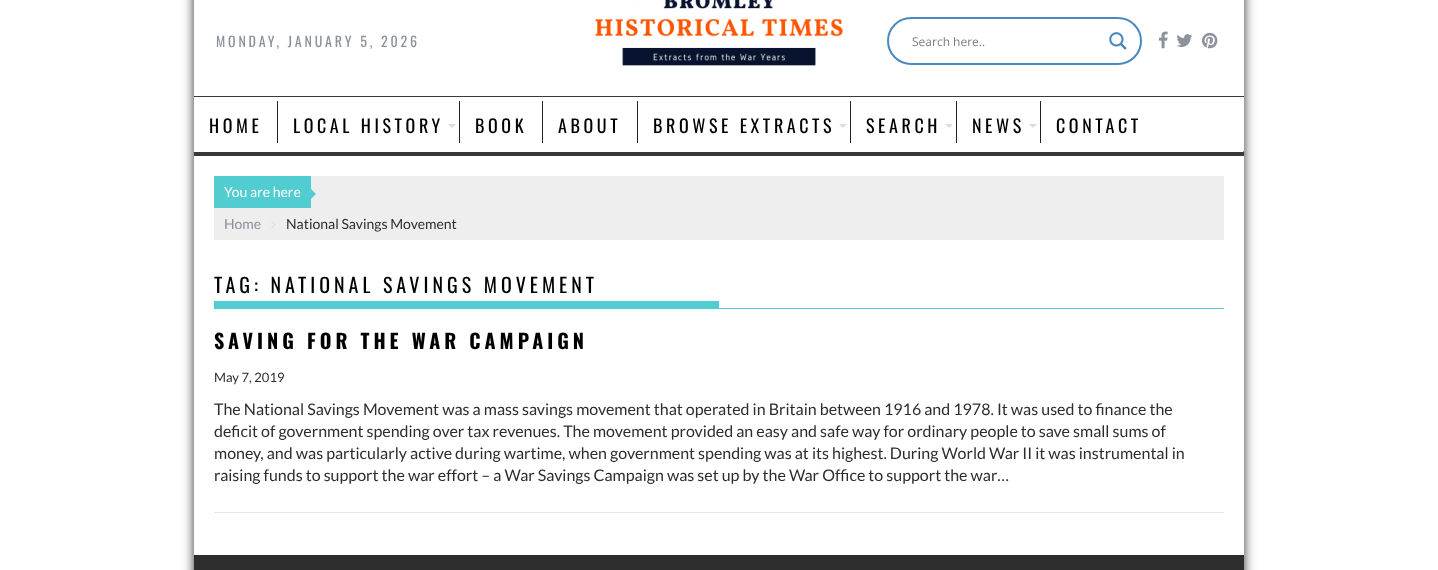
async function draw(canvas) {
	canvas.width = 1438;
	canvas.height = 570;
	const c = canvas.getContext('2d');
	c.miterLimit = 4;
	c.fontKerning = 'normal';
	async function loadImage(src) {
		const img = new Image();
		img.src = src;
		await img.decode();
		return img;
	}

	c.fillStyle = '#fff';
	c.fillRect(0, 0, 1438, 570);
	c.save();
	c.beginPath();
	c.moveTo(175, 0);
	c.lineTo(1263, 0);
	c.lineTo(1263, 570);
	c.lineTo(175, 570);
	c.closePath();
	c.moveTo(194, -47);
	c.lineTo(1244, -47);
	c.lineTo(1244, 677);
	c.lineTo(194, 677);
	c.closePath();
	c.clip('evenodd');
	c.fillStyle = '#2d2d2d';
	c.filter = 'blur(6px)';
	c.beginPath();
	c.rect(194, -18, 1050, 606);
	c.fill();
	c.filter = 'none';
	c.restore();
	c.letterSpacing = '2.8px';
	c.font = '14px Oswald';
	c.fillStyle = '#8c919b';
	c.fillText('MONDAY, JANUARY 5, 2026', 216, 47);
	c.drawImage(await loadImage('img1.png'), 595, 0, 248, 66);
	c.beginPath();
	c.roundRect(888, 18, 253, 46, 23);
	c.strokeStyle = '#4a89bf';
	c.lineWidth = 2;
	c.stroke();
	c.letterSpacing = '0px';
	c.font = '12px Open Sans';
	c.fillStyle = '#7d7d7d';
	c.fillText('Search here..', 912, 46);
	c.drawImage(await loadImage('img2.png'), 1109, 32, 18, 18);
	c.drawImage(await loadImage('img3.png'), 1158, 31, 10, 18);
	c.drawImage(await loadImage('img4.png'), 1176, 34, 17, 13);
	c.drawImage(await loadImage('img5.png'), 1202, 32, 16, 17);
	c.save();
	c.beginPath();
	c.rect(194, 97, 1050, 59);
	c.clip();
	c.fillStyle = '#393939';
	c.beginPath();
	c.moveTo(95, -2);
	c.lineTo(1343, -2);
	c.lineTo(1343, 255);
	c.lineTo(95, 255);
	c.closePath();
	c.moveTo(193, 91);
	c.lineTo(1244, 91);
	c.bezierCurveTo(1245, 92, 1244, 110, 1244, 112);
	c.lineTo(1244, 151);
	c.lineTo(1243, 152);
	c.lineTo(193, 152);
	c.lineTo(192, 151);
	c.lineTo(192, 92);
	c.closePath();
	c.fill('evenodd');
	c.restore();
	c.fillStyle = '#393939';
	c.fillRect(194, 96, 1050, 1);
	c.letterSpacing = '3.6px';
	c.font = '18px Oswald';
	c.fillStyle = '#000';
	c.fillText('HOME', 209, 133);
	c.fillStyle = '#222';
	c.fillRect(277, 101, 1, 42);
	c.fillStyle = '#000';
	c.fillText('LOCAL HISTORY', 293, 133);
	c.fillStyle = '#ddd';
	c.beginPath();
	c.moveTo(448, 124);
	c.lineTo(456, 124);
	c.lineTo(452, 128);
	c.closePath();
	c.fill();
	c.fillStyle = '#222';
	c.fillRect(459, 101, 1, 42);
	c.fillStyle = '#000';
	c.fillText('BOOK', 475, 133);
	c.fillStyle = '#222';
	c.fillRect(542, 101, 1, 42);
	c.fillStyle = '#000';
	c.fillText('ABOUT', 558, 133);
	c.fillStyle = '#222';
	c.fillRect(637, 101, 1, 42);
	c.fillStyle = '#000';
	c.fillText('BROWSE EXTRACTS', 653, 133);
	c.fillStyle = '#ddd';
	c.beginPath();
	c.moveTo(839, 124);
	c.lineTo(847, 124);
	c.lineTo(843, 128);
	c.closePath();
	c.fill();
	c.fillStyle = '#222';
	c.fillRect(850, 101, 1, 42);
	c.fillStyle = '#000';
	c.fillText('SEARCH', 866, 133);
	c.fillStyle = '#ddd';
	c.beginPath();
	c.moveTo(945, 124);
	c.lineTo(953, 124);
	c.lineTo(949, 128);
	c.closePath();
	c.fill();
	c.fillStyle = '#222';
	c.fillRect(956, 101, 1, 42);
	c.fillStyle = '#000';
	c.fillText('NEWS', 972, 133);
	c.fillStyle = '#ddd';
	c.beginPath();
	c.moveTo(1029, 124);
	c.lineTo(1037, 124);
	c.lineTo(1033, 128);
	c.closePath();
	c.fill();
	c.fillStyle = '#222';
	c.fillRect(1040, 101, 1, 42);
	c.fillStyle = '#000';
	c.fillText('CONTACT', 1056, 133);
	c.fillStyle = '#eeeeef';
	c.fillRect(214, 176, 1010, 64);
	c.fillStyle = '#51ccd1';
	c.fillRect(214, 176, 97, 32);
	c.letterSpacing = '0px';
	c.font = '14px Lato';
	c.fillStyle = '#fff';
	c.fillText('You are here', 224, 197);
	c.fillStyle = '#51ccd1';
	c.beginPath();
	c.moveTo(311, 199);
	c.lineTo(311, 189);
	c.lineTo(316, 194);
	c.closePath();
	c.fill();
	c.fillStyle = '#8c919b';
	c.fillText('Home', 224, 229);
	c.drawImage(await loadImage('img6.png'), 271, 221, 5, 7);
	c.fillStyle = '#2d2d2d';
	c.fillText('National Savings Movement', 286, 229);
	c.fillStyle = '#51ccd1';
	c.fillRect(214, 308, 1010, 1);
	c.letterSpacing = '4px';
	c.font = '20px Oswald';
	c.fillStyle = '#000';
	c.fillText('TAG: NATIONAL SAVINGS MOVEMENT', 214, 293);
	c.fillStyle = '#51ccd1';
	c.fillRect(214, 301, 505, 7);
	c.fillStyle = '#e5e5e5';
	c.fillRect(214, 512, 1010, 1);
	c.font = 'bold 20px Oswald';
	c.fillStyle = '#000';
	c.fillText('SAVING FOR THE WAR CAMPAIGN', 214, 349);
	c.letterSpacing = '0px';
	c.font = '13px Lato';
	c.fillStyle = '#2d2d2d';
	c.fillText('May 7, 2019', 214, 382);
	c.font = '16px Lato';
	for (const [text, x, y] of [
		['The National Savings Movement was a mass savings movement that operated in Britain between 1916 and 1978. It was used to finance the', 214, 415],
		['deficit of government spending over tax revenues. The movement provided an easy and safe way for ordinary people to save small sums of', 214, 437],
		['money, and was particularly active during wartime, when government spending was at its highest. During World War II it was instrumental in', 214, 459],
		['raising funds to support the war effort – a War Savings Campaign was set up by the War Office to support the war…', 214, 481],
	]) {
		c.fillText(text, x, y);
	}
	c.fillRect(194, 555, 1050, 15);
}

draw(document.querySelector('canvas'));
